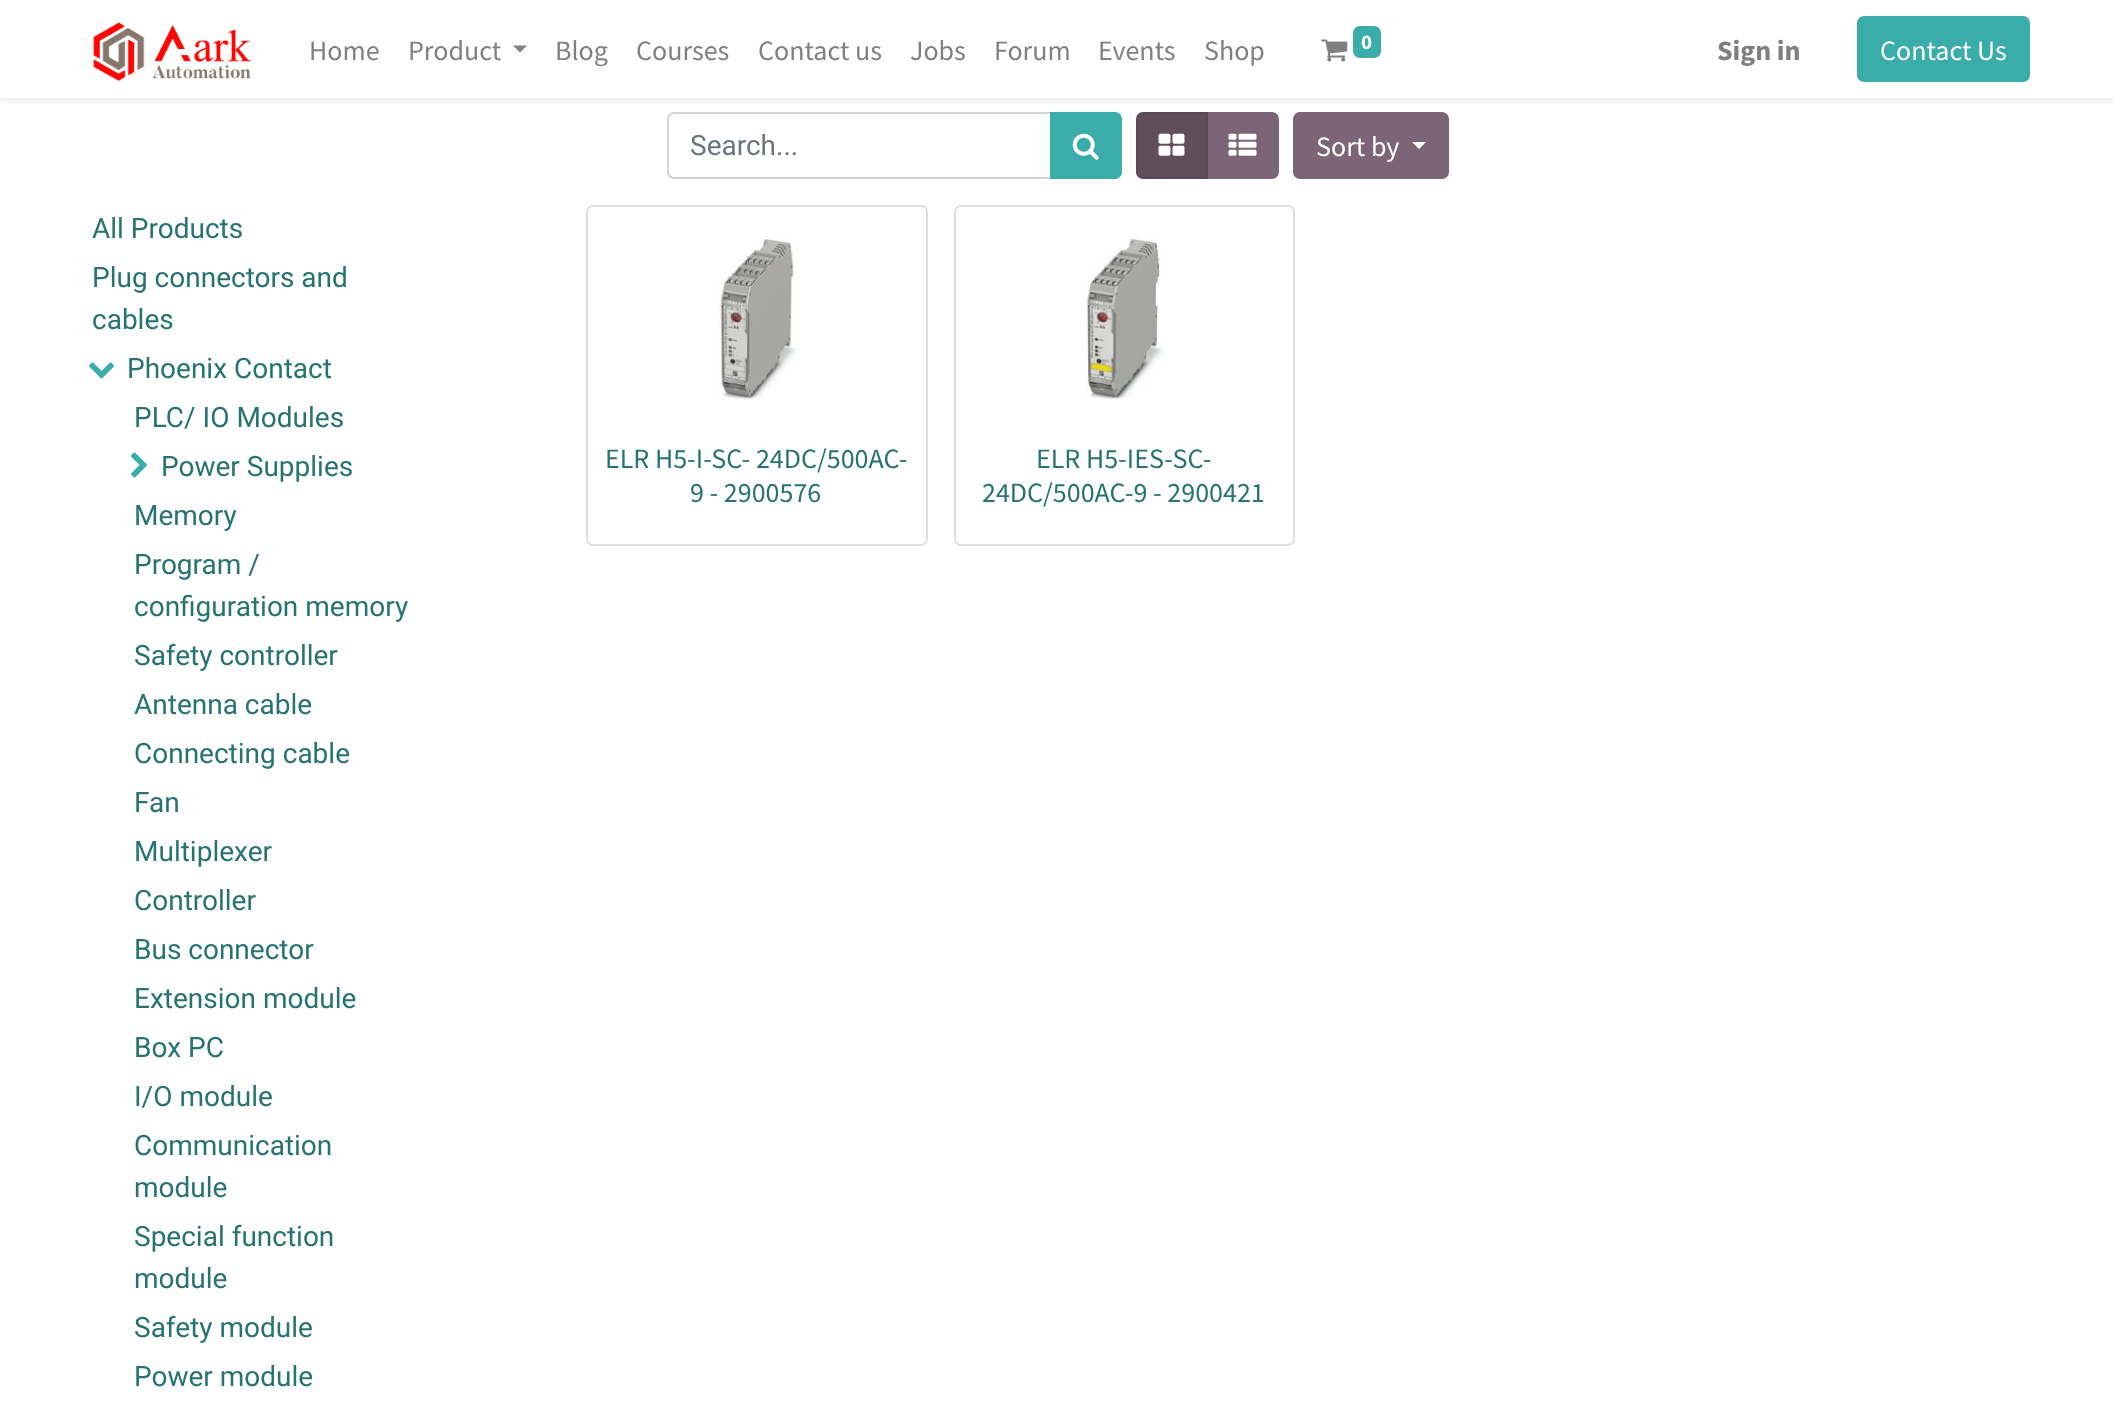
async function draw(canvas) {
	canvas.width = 2115;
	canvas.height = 1404;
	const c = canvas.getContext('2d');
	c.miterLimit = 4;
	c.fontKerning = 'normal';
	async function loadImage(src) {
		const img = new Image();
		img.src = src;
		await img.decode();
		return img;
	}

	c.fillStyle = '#fff';
	c.fillRect(0, 0, 2115, 1404);
	c.beginPath();
	c.roundRect(668, 113, 383, 65, [6, 0, 0, 6]);
	c.strokeStyle = '#ced4da';
	c.lineWidth = 2;
	c.stroke();
	c.fillStyle = '#3aadaa';
	c.beginPath();
	c.roundRect(1051, 113, 70, 65, [0, 6, 6, 0]);
	c.fill();
	c.strokeStyle = '#3aadaa';
	c.stroke();
	c.fillStyle = '#7c6576';
	c.beginPath();
	c.roundRect(1207, 113, 71, 65, [0, 6, 6, 0]);
	c.fill();
	c.strokeStyle = '#7c6576';
	c.stroke();
	c.fillStyle = '#604e5b';
	c.beginPath();
	c.roundRect(1137, 113, 70, 65, [6, 0, 0, 6]);
	c.fill();
	c.strokeStyle = '#594954';
	c.stroke();
	c.fillStyle = '#7c6576';
	c.beginPath();
	c.roundRect(1294, 113, 154, 65, 6);
	c.fill();
	c.strokeStyle = '#7c6576';
	c.stroke();
	c.save();
	c.beginPath();
	c.rect(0, 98, 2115, 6);
	c.clip();
	c.fillStyle = '#00000012';
	c.filter = 'blur(3.5px)';
	c.beginPath();
	c.rect(0, 4, 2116, 98);
	c.fill();
	c.filter = 'none';
	c.restore();
	c.drawImage(await loadImage('img1.png'), 93, 22, 159, 59);
	c.font = '28px Source Sans Pro';
	c.fillStyle = '#808080';
	c.fillText('Home', 309, 60);
	c.fillText('Product', 408, 60);
	c.beginPath();
	c.moveTo(513, 45.5);
	c.lineTo(527, 45.5);
	c.lineTo(520, 52.5);
	c.closePath();
	c.fill();
	for (const [text, x, y] of [
		['Blog', 555, 60],
		['Courses', 636, 60],
		['Contact us', 758, 60],
		['Jobs', 910, 60],
		['Forum', 994, 60],
		['Events', 1098, 60],
		['Shop', 1204, 60],
	]) {
		c.fillText(text, x, y);
	}
	c.drawImage(await loadImage('img2.png'), 1321, 39, 27, 23);
	c.fillStyle = '#3aadaa';
	c.beginPath();
	c.roundRect(1353, 26, 28, 32, 7);
	c.fill();
	c.font = 'bold 21px Source Sans Pro';
	c.fillStyle = '#fff';
	c.fillText('0', 1361, 49);
	c.font = 'bold 28px Source Sans Pro';
	c.fillStyle = '#808080';
	c.fillText('Sign in', 1717, 60);
	c.fillStyle = '#3aadaa';
	c.beginPath();
	c.roundRect(1858, 17, 171, 64, 6);
	c.fill();
	c.strokeStyle = '#3aadaa';
	c.stroke();
	c.font = '28px Source Sans Pro';
	c.fillStyle = '#fff';
	c.fillText('Contact Us', 1880, 60);
	c.font = '28px Roboto';
	c.fillStyle = '#6c757d';
	c.fillText('Search...', 690, 155);
	c.drawImage(await loadImage('img3.png'), 1072, 133, 27, 27);
	c.drawImage(await loadImage('img4.png'), 1158, 133, 27, 23);
	c.drawImage(await loadImage('img5.png'), 1228, 133, 29, 23);
	c.font = '28px Source Sans Pro';
	c.fillStyle = '#fff';
	c.fillText('Sort by', 1316, 156);
	c.beginPath();
	c.moveTo(1412, 142);
	c.lineTo(1426, 142);
	c.lineTo(1419, 149);
	c.closePath();
	c.fill();
	c.font = '28px Roboto';
	c.fillStyle = '#267372';
	for (const [text, x, y] of [
		['All Products', 92, 238],
		['Plug connectors and', 92, 287],
		['cables', 92, 329],
	]) {
		c.fillText(text, x, y);
	}
	c.drawImage(await loadImage('img6.png'), 88, 362, 27, 17);
	c.fillText('Phoenix Contact', 127, 378);
	c.fillText('PLC/ IO Modules', 134, 427);
	c.drawImage(await loadImage('img7.png'), 130, 452, 17, 26);
	for (const [text, x, y] of [
		['Power Supplies', 161, 476],
		['Memory', 134, 525],
		['Program /', 134, 574],
		['configuration memory', 134, 616],
		['Safety controller', 134, 665],
		['Antenna cable', 134, 714],
		['Connecting cable', 134, 763],
		['Fan', 134, 812],
		['Multiplexer', 134, 861],
		['Controller', 134, 910],
		['Bus connector', 134, 959],
		['Extension module', 134, 1008],
		['Box PC', 134, 1057],
		['I/O module', 134, 1106],
		['Communication', 134, 1155],
		['module', 134, 1197],
		['Special function', 134, 1246],
		['module', 134, 1288],
		['Safety module', 134, 1337],
		['Power module', 134, 1386],
	]) {
		c.fillText(text, x, y);
	}
	c.beginPath();
	c.roundRect(587, 206, 340, 339, 6);
	c.strokeStyle = '#dfdfdf';
	c.stroke();
	c.fillStyle = '#ffffffe6';
	c.beginPath();
	c.roundRect(588, 207, 338, 222, [5, 5, 0, 0]);
	c.fill();
	c.drawImage(await loadImage('img8.png'), 718, 238, 80, 162);
	c.beginPath();
	c.roundRect(588, 429, 338, 115, [0, 0, 5, 5]);
	c.fill();
	c.font = '28px Source Sans Pro';
	c.fillStyle = '#267372';
	c.fillText('ELR H5-I-SC- 24DC/500AC-', 605, 468);
	c.fillText('9 - 2900576', 690, 502);
	c.beginPath();
	c.roundRect(955, 206, 339, 339, 6);
	c.stroke();
	c.fillStyle = '#ffffffe6';
	c.beginPath();
	c.roundRect(956, 207, 337, 222, [5, 5, 0, 0]);
	c.fill();
	c.drawImage(await loadImage('img9.png'), 1085, 238, 81, 162);
	c.beginPath();
	c.roundRect(956, 429, 337, 115, [0, 0, 5, 5]);
	c.fill();
	c.fillStyle = '#267372';
	c.fillText('ELR H5-IES-SC-', 1036, 468);
	c.fillText('24DC/500AC-9 - 2900421', 982, 502);
}

draw(document.querySelector('canvas'));
